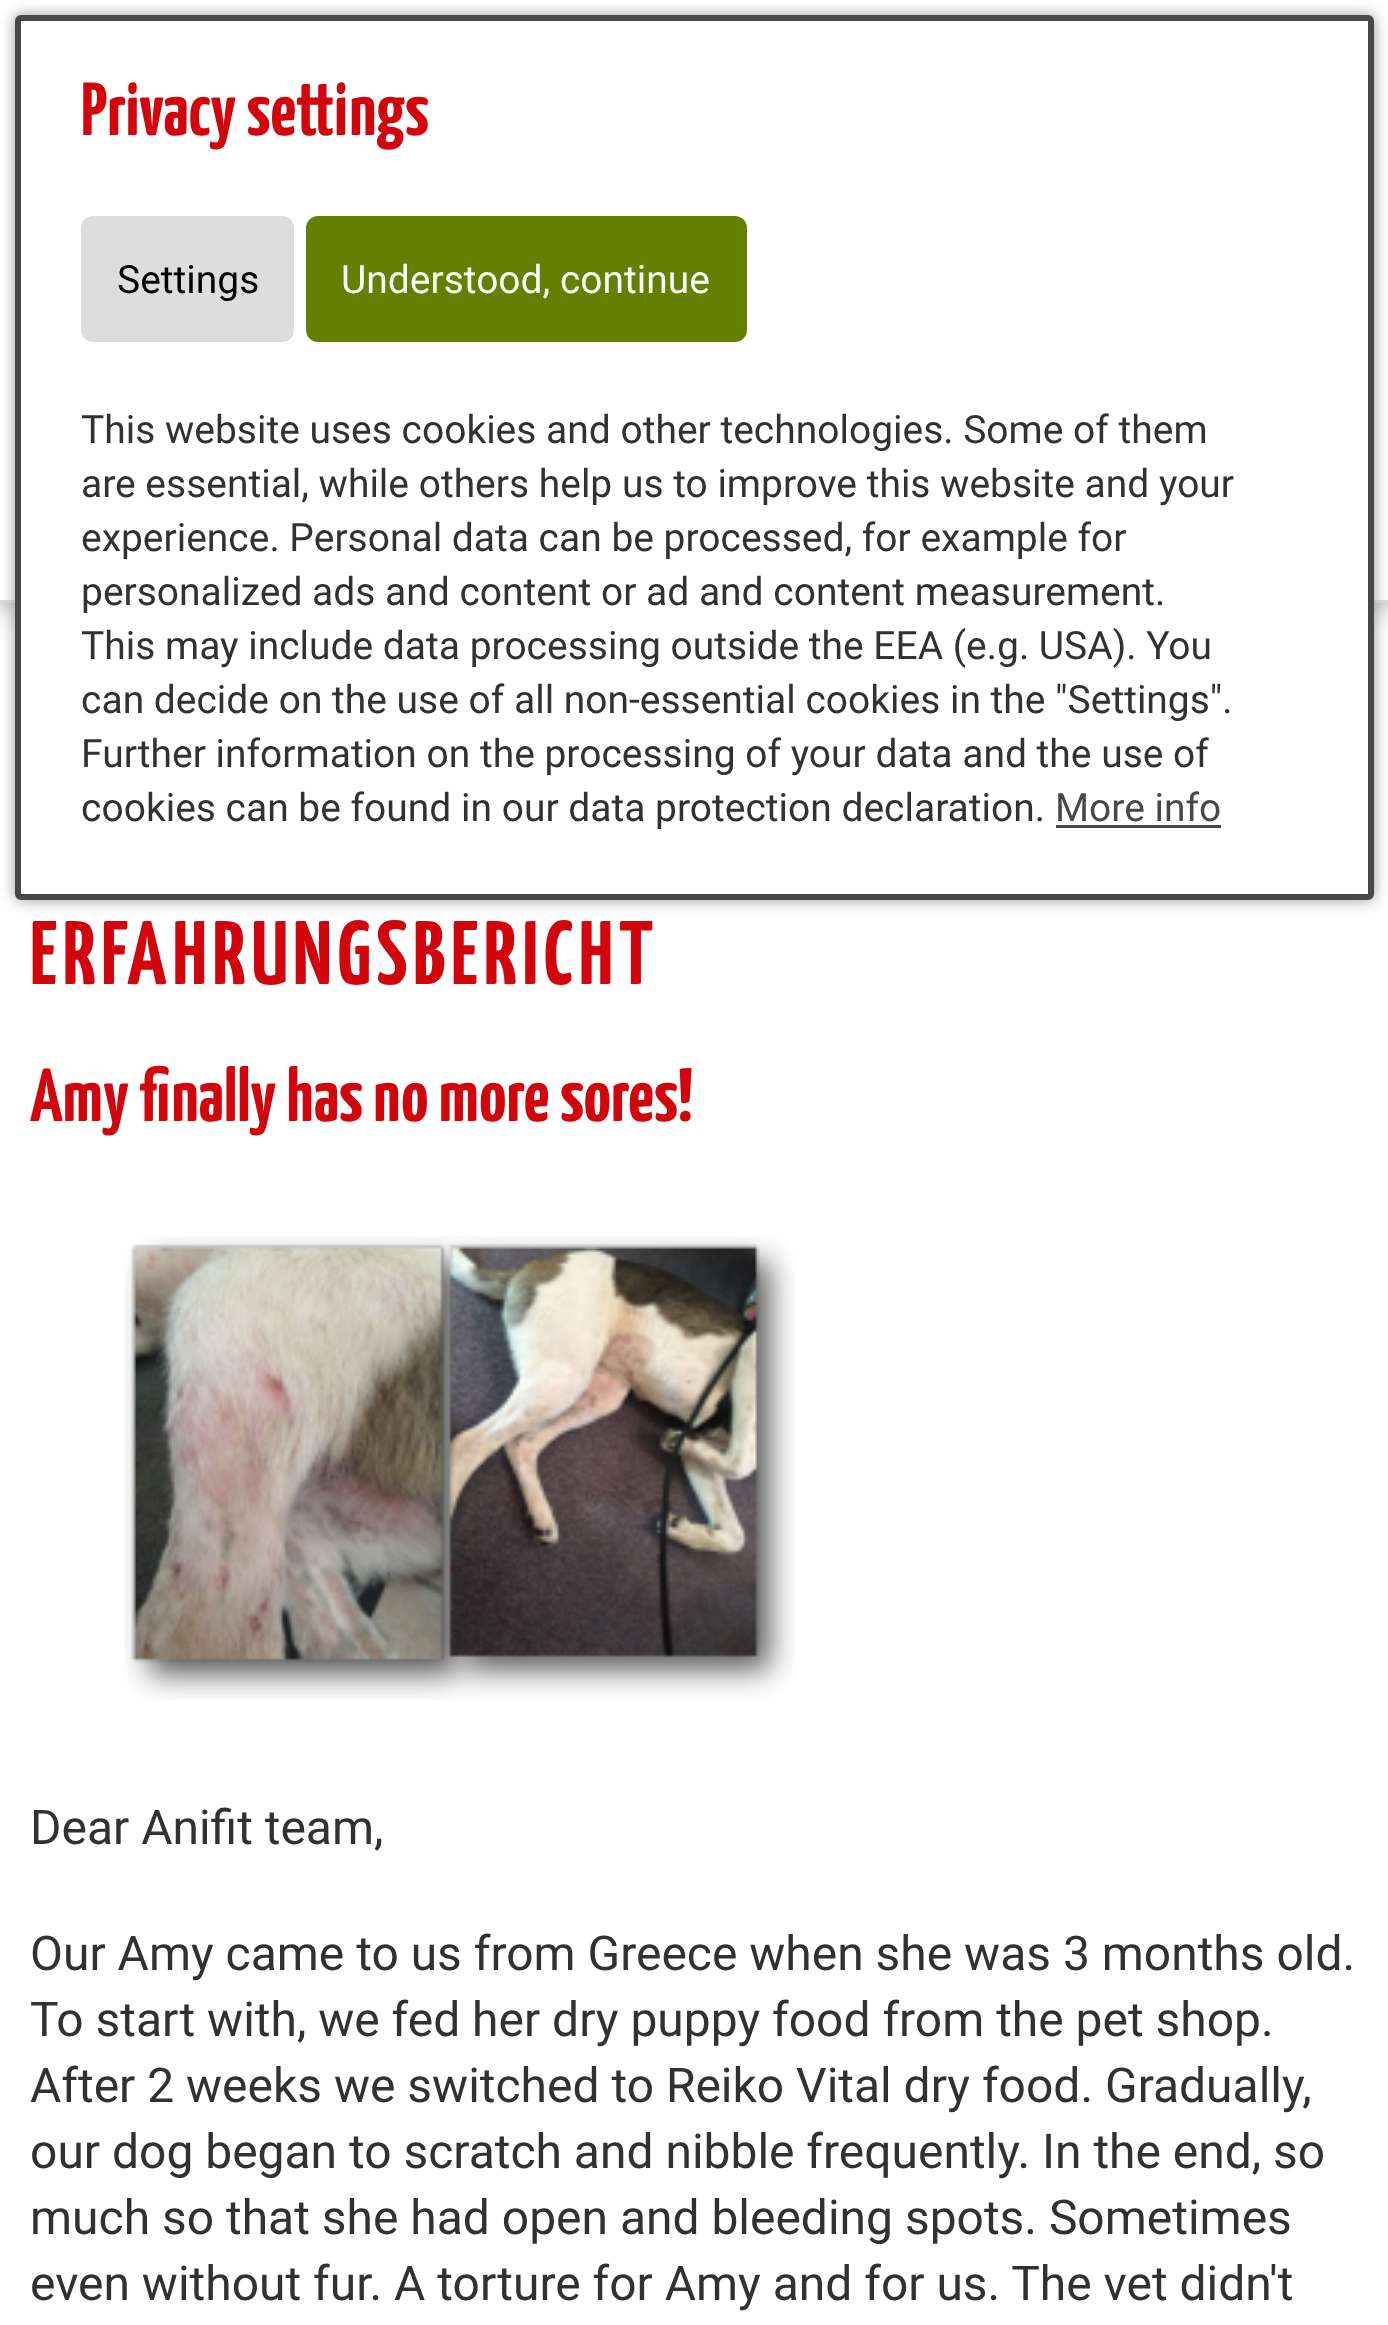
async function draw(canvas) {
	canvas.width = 1388;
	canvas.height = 2325;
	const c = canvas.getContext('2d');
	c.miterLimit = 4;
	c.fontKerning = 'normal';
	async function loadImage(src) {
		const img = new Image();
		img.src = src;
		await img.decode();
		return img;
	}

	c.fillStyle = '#fff';
	c.fillRect(0, 0, 1388, 2325);
	c.save();
	c.beginPath();
	c.rect(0, 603, 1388, 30);
	c.clip();
	c.fillStyle = '#808080';
	c.filter = 'blur(15px)';
	c.beginPath();
	c.rect(0, 0, 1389, 603);
	c.fill();
	c.filter = 'none';
	c.restore();
	c.fillStyle = '#ddd';
	c.fillRect(0, 600, 1388, 3);
	c.fillStyle = '#999';
	c.filter = 'blur(7.5px)';
	c.beginPath();
	c.roundRect(15, 15, 1359, 885, 6);
	c.fill();
	c.filter = 'none';
	c.fillStyle = '#fff';
	c.beginPath();
	c.roundRect(18, 18, 1353, 879, 3);
	c.fill();
	c.strokeStyle = '#484848';
	c.lineWidth = 6;
	c.stroke();
	c.font = 'bold 75px Yanone Kaffeesatz';
	c.fillStyle = '#d3050c';
	c.fillText('Privacy settings', 81, 135);
	c.fillStyle = '#ddd';
	c.beginPath();
	c.roundRect(84, 219, 207, 120, 9);
	c.fill();
	c.strokeStyle = '#ddd';
	c.stroke();
	c.font = '39px Roboto';
	c.fillStyle = '#000';
	c.fillText('Settings', 117, 293);
	c.fillStyle = '#638000';
	c.beginPath();
	c.roundRect(309, 219, 435, 120, 9);
	c.fill();
	c.strokeStyle = '#638000';
	c.stroke();
	c.fillStyle = '#fff';
	c.fillText('Understood, continue', 341, 293);
	c.fillStyle = '#313131';
	for (const [text, x, y] of [
		['This website uses cookies and other technologies. Some of them', 81, 443],
		['are essential, while others help us to improve this website and your', 81, 497],
		['experience. Personal data can be processed, for example for', 81, 551],
		['personalized ads and content or ad and content measurement.', 81, 605],
		['This may include data processing outside the EEA (e.g. USA). You', 81, 659],
		['can decide on the use of all non-essential cookies in the "Settings".', 81, 713],
		['Further information on the processing of your data and the use of', 81, 767],
		['cookies can be found in our data protection declaration.', 81, 821],
	]) {
		c.fillText(text, x, y);
	}
	c.fillStyle = '#484848';
	c.fillText('More info', 1055, 821);
	c.fillRect(1056, 825, 165, 3);
	c.letterSpacing = '5.75px';
	c.font = 'bold 90px Yanone Kaffeesatz';
	c.fillStyle = '#d3050c';
	c.fillText('ERFAHRUNGSBERICHT', 30, 984);
	c.letterSpacing = '0px';
	c.font = 'bold 75px Yanone Kaffeesatz';
	c.fillText('Amy finally has no more sores!', 30, 1121);
	c.drawImage(await loadImage('img1.png'), 124, 1236, 672, 464);
	c.font = '48px Roboto';
	c.fillStyle = '#313131';
	for (const [text, x, y] of [
		['Dear Anifit team,', 30, 1844],
		['Our Amy came to us from Greece when she was 3 months old.', 30, 1970],
		['To start with, we fed her dry puppy food from the pet shop.', 30, 2036],
		['After 2 weeks we switched to Reiko Vital dry food. Gradually,', 30, 2102],
		['our dog began to scratch and nibble frequently. In the end, so', 30, 2168],
		['much so that she had open and bleeding spots. Sometimes', 30, 2234],
		['even without fur. A torture for Amy and for us. The vet didn\'t', 30, 2300],
	]) {
		c.fillText(text, x, y);
	}
}

draw(document.querySelector('canvas'));
